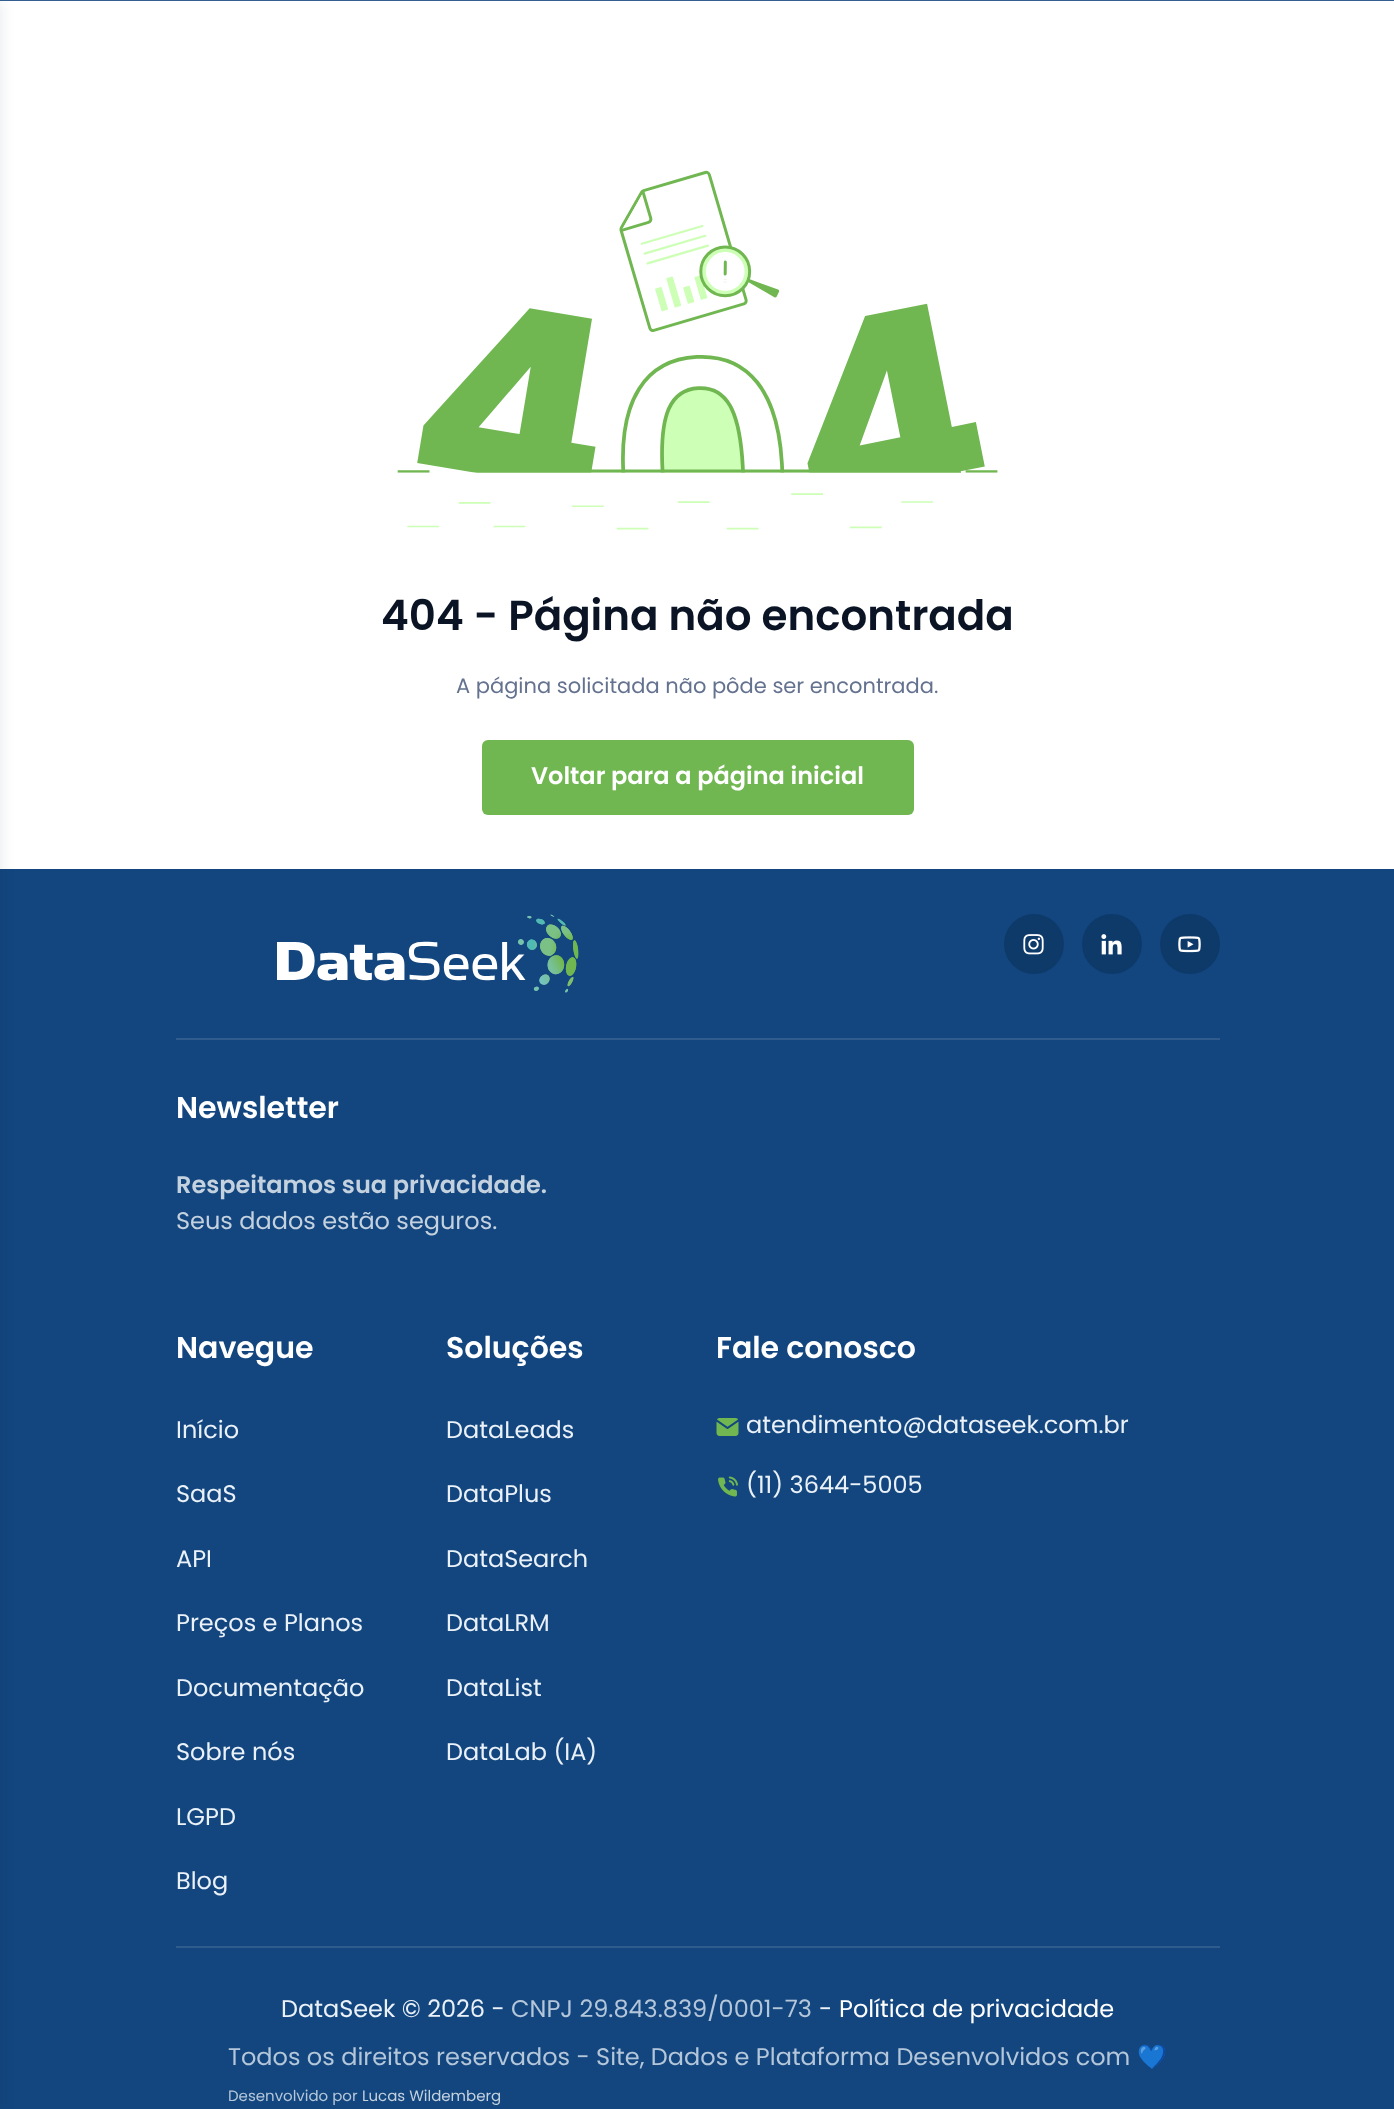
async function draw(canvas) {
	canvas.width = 1394;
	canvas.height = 2109;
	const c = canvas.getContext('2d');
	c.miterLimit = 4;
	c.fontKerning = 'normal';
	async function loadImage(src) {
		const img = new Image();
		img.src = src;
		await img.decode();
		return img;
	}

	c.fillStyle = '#fff';
	c.fillRect(0, 0, 1394, 2109);
	c.fillStyle = '#325f90';
	c.fillRect(0, 0, 1394, 1);
	c.fillStyle = '#13467e';
	c.fillRect(0, 869, 1394, 1240);
	c.fillStyle = '#0a14251a';
	c.filter = 'blur(7.5px)';
	c.beginPath();
	c.rect(-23, 0, 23, 2109);
	c.fill();
	c.filter = 'none';
	c.drawImage(await loadImage('img1.png'), 397, 170, 601, 360);
	c.font = '600 42px Poppins';
	c.fillStyle = '#0a1425';
	c.fillText('404 - Página não encontrada', 381, 630);
	c.font = '21px Poppins';
	c.fillStyle = '#64728f';
	c.fillText('A página solicitada não pôde ser encontrada.', 456, 693);
	c.fillStyle = '#70b751';
	c.beginPath();
	c.roundRect(482, 740, 432, 75, 6);
	c.fill();
	c.font = '600 24px Poppins';
	c.fillStyle = '#fff';
	c.fillText('Voltar para a página inicial', 531, 784);
	c.fillStyle = '#2f5c8d';
	c.fillRect(176, 1038, 1044, 2);
	c.drawImage(await loadImage('img2.png'), 277, 914, 302, 79);
	c.fillStyle = '#0e3a6a';
	c.beginPath();
	c.arc(1034, 944, 29, 0, 2 * Math.PI);
	c.fill();
	c.strokeStyle = '#0e3a6a';
	c.lineWidth = 2;
	c.stroke();
	c.drawImage(await loadImage('img3.png'), 1023, 934, 21, 21);
	c.beginPath();
	c.arc(1112, 944, 29, 0, 2 * Math.PI);
	c.fill();
	c.stroke();
	c.drawImage(await loadImage('img4.png'), 1101, 934, 21, 21);
	c.beginPath();
	c.arc(1190, 944, 29, 0, 2 * Math.PI);
	c.fill();
	c.stroke();
	c.drawImage(await loadImage('img5.png'), 1178, 936, 23, 17);
	c.fillStyle = '#2f5c8d';
	c.fillRect(176, 1946, 1044, 2);
	c.font = '600 30px Poppins';
	c.fillStyle = '#fff';
	c.fillText('Newsletter', 176, 1118);
	c.font = '600 24px Poppins';
	c.fillStyle = '#c4d1df';
	c.fillText('Respeitamos sua privacidade.', 176, 1193);
	c.font = '24px Poppins';
	c.fillText('Seus dados estão seguros.', 176, 1229);
	c.font = '600 30px Poppins';
	c.fillStyle = '#fff';
	c.fillText('Navegue', 176, 1358);
	c.font = '24px Poppins';
	c.fillStyle = '#eaf1f8';
	for (const [text, x, y] of [
		['Início', 176, 1438],
		['SaaS', 176, 1502],
		['API', 176, 1567],
		['Preços e Planos', 176, 1631],
		['Documentação', 176, 1696],
		['Sobre nós', 176, 1760],
		['LGPD', 176, 1825],
		['Blog', 176, 1889],
	]) {
		c.fillText(text, x, y);
	}
	c.font = '600 30px Poppins';
	c.fillStyle = '#fff';
	c.fillText('Soluções', 446, 1358);
	c.font = '24px Poppins';
	c.fillStyle = '#eaf1f8';
	for (const [text, x, y] of [
		['DataLeads', 446, 1438],
		['DataPlus', 446, 1502],
		['DataSearch', 446, 1567],
		['DataLRM', 446, 1631],
		['DataList', 446, 1696],
		['DataLab (IA)', 446, 1760],
	]) {
		c.fillText(text, x, y);
	}
	c.font = '600 30px Poppins';
	c.fillStyle = '#fff';
	c.fillText('Fale conosco', 716, 1358);
	c.drawImage(await loadImage('img6.png'), 716, 1418, 23, 18);
	c.font = '24px Poppins';
	c.fillStyle = '#eaf1f8';
	c.fillText('atendimento@dataseek.com.br', 746, 1433);
	c.drawImage(await loadImage('img7.png'), 718, 1476, 20, 21);
	c.fillText('(11) 3644-5005', 746, 1493);
	c.fillText('DataSeek © 2026 -', 281, 2017);
	c.fillStyle = '#b4c6da';
	c.fillText('CNPJ 29.843.839/0001-73', 511, 2017);
	c.fillStyle = '#eaf1f8';
	c.fillText('-', 819, 2017);
	c.fillStyle = '#fff';
	c.fillText('Política de privacidade', 839, 2017);
	c.fillStyle = '#b4c6da';
	c.fillText('Todos os direitos reservados - Site, Dados e Plataforma Desenvolvidos com', 228, 2065);
	c.font = '24px Noto Color Emoji';
	c.fillText('💙', 1137, 2065);
	c.font = '15px Poppins';
	c.fillText('Desenvolvido por', 228, 2101);
	c.fillStyle = '#c4d1df';
	c.fillText('Lucas Wildemberg', 362, 2101);
}

draw(document.querySelector('canvas'));
